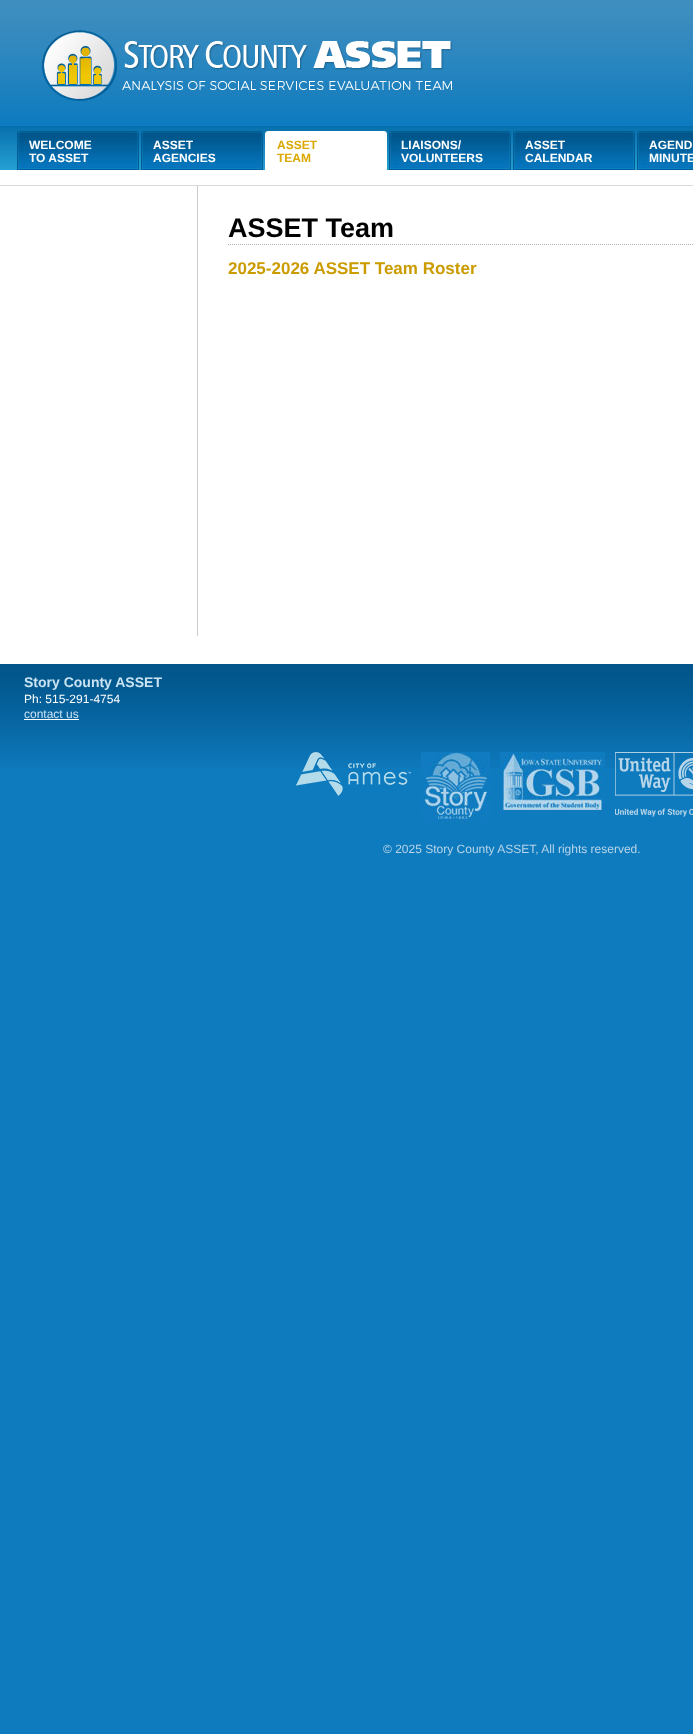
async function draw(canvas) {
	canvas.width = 693;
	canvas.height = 1734;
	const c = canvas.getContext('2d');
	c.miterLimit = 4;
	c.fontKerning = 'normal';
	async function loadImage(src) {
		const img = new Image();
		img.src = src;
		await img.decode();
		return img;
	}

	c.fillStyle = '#0f7bbf';
	c.fillRect(0, 0, 693, 1734);
	c.drawImage(await loadImage('img1.png'), 0, 0, 693, 170);
	c.drawImage(await loadImage('img2.png'), 42, 30, 411, 71);
	c.drawImage(await loadImage('img3.png'), 17, 131, 122, 39);
	c.font = 'bold 12px Liberation Sans';
	c.fillStyle = '#fff';
	c.fillText('WELCOME', 29, 149);
	c.fillText('TO ASSET', 29, 162);
	c.drawImage(await loadImage('img3.png'), 141, 131, 122, 39);
	c.fillText('ASSET', 153, 149);
	c.fillText('AGENCIES', 153, 162);
	c.drawImage(await loadImage('img4.png'), 265, 131, 122, 39);
	c.fillStyle = '#dba804';
	c.fillText('ASSET', 277, 149);
	c.fillText('TEAM', 277, 162);
	c.drawImage(await loadImage('img3.png'), 389, 131, 122, 39);
	c.fillStyle = '#fff';
	c.fillText('LIAISONS/', 401, 149);
	c.fillText('VOLUNTEERS', 401, 162);
	c.drawImage(await loadImage('img3.png'), 513, 131, 122, 39);
	c.fillText('ASSET', 525, 149);
	c.fillText('CALENDAR', 525, 162);
	c.drawImage(await loadImage('img5.png'), 637, 131, 56, 39);
	c.fillText('AGEND', 649, 149);
	c.fillText('MINUTE', 649, 162);
	for (const [x, y, w, h, color] of [
		[0, 170, 693, 494, '#fff'],
		[0, 185, 693, 1, '#dadada'],
		[197, 186, 1, 450, '#ccc'],
	]) {
		c.fillStyle = color;
		c.fillRect(x, y, w, h);
	}
	c.beginPath();
	c.moveTo(228, 244.5);
	c.lineTo(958, 244.5);
	c.strokeStyle = '#b2b2b2';
	c.setLineDash([1, 1]);
	c.stroke();
	c.font = 'bold 27px Liberation Sans';
	c.fillStyle = '#000';
	c.fillText('ASSET Team', 228, 237);
	c.font = 'bold 17px Liberation Sans';
	c.fillStyle = '#cb9c00';
	c.fillText('2025-2026 ASSET Team Roster', 228, 274);
	c.drawImage(await loadImage('img6.png'), 0, 664, 693, 104);
	c.font = 'bold 14px Liberation Sans';
	c.fillStyle = '#cae3f3';
	c.fillText('Story County ASSET', 24, 687);
	c.font = '12px Liberation Sans';
	c.fillStyle = '#fff';
	c.fillText('Ph: 515-291-4754', 24, 703);
	c.fillStyle = '#cae3f3';
	c.fillText('contact us', 24, 718);
	c.fillStyle = '#fff';
	c.fillRect(24, 719, 55, 1);
	c.drawImage(await loadImage('img7.png'), 296, 752, 115, 44);
	c.drawImage(await loadImage('img8.png'), 421, 752, 69, 70);
	c.drawImage(await loadImage('img9.png'), 500, 752, 105, 62);
	c.drawImage(await loadImage('img10.png'), 615, 752, 78, 65);
	c.fillStyle = '#b7d5e8';
	c.fillText('© 2025 Story County ASSET, All rights reserved.', 383, 853);
}

draw(document.querySelector('canvas'));
